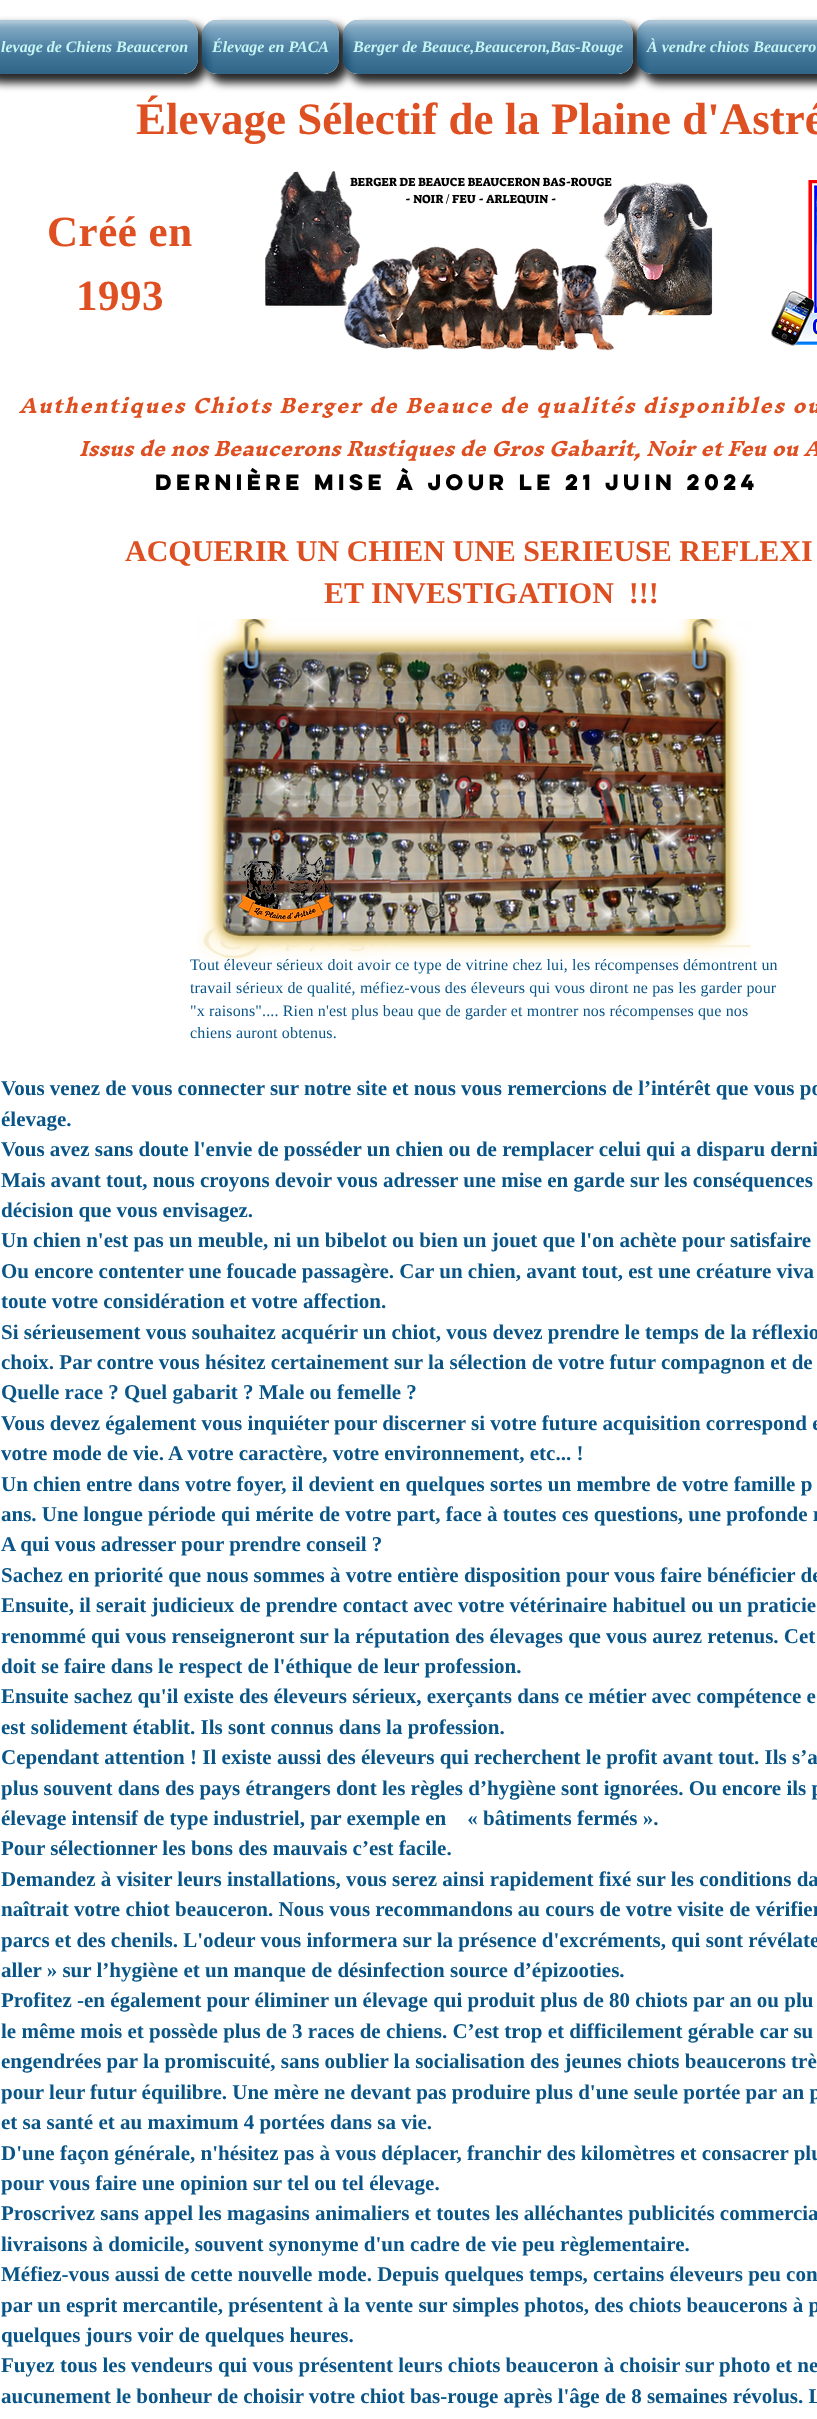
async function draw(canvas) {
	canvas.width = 817;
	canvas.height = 2419;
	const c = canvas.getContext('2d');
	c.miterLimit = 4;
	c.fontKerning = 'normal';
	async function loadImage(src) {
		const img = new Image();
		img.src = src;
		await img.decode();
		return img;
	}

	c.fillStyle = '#fff';
	c.fillRect(0, 0, 817, 2419);
	c.save();
	c.beginPath();
	c.moveTo(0, 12);
	c.lineTo(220, 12);
	c.lineTo(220, 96);
	c.lineTo(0, 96);
	c.closePath();
	c.moveTo(-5, 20);
	c.lineTo(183, 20);
	c.bezierCurveTo(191.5, 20, 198, 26.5, 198, 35);
	c.lineTo(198, 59);
	c.bezierCurveTo(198, 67.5, 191.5, 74, 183, 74);
	c.lineTo(-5, 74);
	c.bezierCurveTo(-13.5, 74, -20, 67.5, -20, 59);
	c.lineTo(-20, 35);
	c.bezierCurveTo(-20, 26.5, -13.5, 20, -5, 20);
	c.closePath();
	c.clip('evenodd');
	c.fillStyle = '#000000d6';
	c.filter = 'blur(4px)';
	c.beginPath();
	c.roundRect(-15, 25, 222, 58, 17);
	c.fill();
	c.filter = 'none';
	c.restore();
	c.fillStyle = '#0a5587cc';
	c.beginPath();
	c.roundRect(-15, 20, 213, 54, 15);
	c.fill();
	c.drawImage(await loadImage('img1.png'), 0, 20, 198, 46);
	c.drawImage(await loadImage('img2.png'), 0, 40, 198, 34);
	c.font = 'italic bold 16px Liberation Serif';
	c.fillStyle = '#c5f5f5';
	c.fillText('levage de Chiens Beauceron', 1, 52);
	c.save();
	c.beginPath();
	c.moveTo(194, 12);
	c.lineTo(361, 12);
	c.lineTo(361, 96);
	c.lineTo(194, 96);
	c.closePath();
	c.moveTo(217, 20);
	c.lineTo(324, 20);
	c.bezierCurveTo(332.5, 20, 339, 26.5, 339, 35);
	c.lineTo(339, 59);
	c.bezierCurveTo(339, 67.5, 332.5, 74, 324, 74);
	c.lineTo(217, 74);
	c.bezierCurveTo(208.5, 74, 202, 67.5, 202, 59);
	c.lineTo(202, 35);
	c.bezierCurveTo(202, 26.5, 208.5, 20, 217, 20);
	c.closePath();
	c.clip('evenodd');
	c.fillStyle = '#000000d6';
	c.filter = 'blur(4px)';
	c.beginPath();
	c.roundRect(207, 25, 141, 58, 17);
	c.fill();
	c.filter = 'none';
	c.restore();
	c.fillStyle = '#0a5587cc';
	c.beginPath();
	c.roundRect(202, 20, 137, 54, 15);
	c.fill();
	c.drawImage(await loadImage('img3.png'), 202, 20, 137, 46);
	c.drawImage(await loadImage('img4.png'), 202, 40, 137, 34);
	c.fillStyle = '#c5f5f5';
	c.fillText('Élevage en PACA', 212, 52);
	c.save();
	c.beginPath();
	c.moveTo(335, 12);
	c.lineTo(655, 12);
	c.lineTo(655, 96);
	c.lineTo(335, 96);
	c.closePath();
	c.moveTo(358, 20);
	c.lineTo(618, 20);
	c.bezierCurveTo(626.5, 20, 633, 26.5, 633, 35);
	c.lineTo(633, 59);
	c.bezierCurveTo(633, 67.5, 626.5, 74, 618, 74);
	c.lineTo(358, 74);
	c.bezierCurveTo(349.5, 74, 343, 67.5, 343, 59);
	c.lineTo(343, 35);
	c.bezierCurveTo(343, 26.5, 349.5, 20, 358, 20);
	c.closePath();
	c.clip('evenodd');
	c.fillStyle = '#000000d6';
	c.filter = 'blur(4px)';
	c.beginPath();
	c.roundRect(348, 25, 294, 58, 17);
	c.fill();
	c.filter = 'none';
	c.restore();
	c.fillStyle = '#0a5587cc';
	c.beginPath();
	c.roundRect(343, 20, 290, 54, 15);
	c.fill();
	c.drawImage(await loadImage('img5.png'), 343, 20, 290, 46);
	c.drawImage(await loadImage('img6.png'), 343, 40, 290, 34);
	c.fillStyle = '#c5f5f5';
	c.fillText('Berger de Beauce,Beauceron,Bas-Rouge', 353, 52);
	c.save();
	c.beginPath();
	c.moveTo(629, 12);
	c.lineTo(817, 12);
	c.lineTo(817, 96);
	c.lineTo(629, 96);
	c.closePath();
	c.moveTo(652, 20);
	c.lineTo(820, 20);
	c.bezierCurveTo(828.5, 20, 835, 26.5, 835, 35);
	c.lineTo(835, 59);
	c.bezierCurveTo(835, 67.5, 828.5, 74, 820, 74);
	c.lineTo(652, 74);
	c.bezierCurveTo(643.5, 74, 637, 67.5, 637, 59);
	c.lineTo(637, 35);
	c.bezierCurveTo(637, 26.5, 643.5, 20, 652, 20);
	c.closePath();
	c.clip('evenodd');
	c.fillStyle = '#000000d6';
	c.filter = 'blur(4px)';
	c.beginPath();
	c.roundRect(642, 25, 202, 58, 17);
	c.fill();
	c.filter = 'none';
	c.restore();
	c.fillStyle = '#0a5587cc';
	c.beginPath();
	c.roundRect(637, 20, 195, 54, 15);
	c.fill();
	c.drawImage(await loadImage('img7.png'), 637, 20, 180, 46);
	c.drawImage(await loadImage('img8.png'), 637, 40, 180, 34);
	c.fillStyle = '#c5f5f5';
	c.fillText('À vendre chiots Beaucero', 647, 52);
	c.font = 'bold 45px Liberation Serif';
	c.fillStyle = '#de5021';
	c.fillText('Élevage Sélectif de la Plaine d\'Astré', 136, 134);
	c.drawImage(await loadImage('img9.png'), 265, 171, 448, 180);
	c.letterSpacing = '0.5px';
	c.font = 'bold 43px Liberation Serif';
	c.fillText('Créé en', 47, 246);
	c.fillText('1993', 76, 310);
	c.letterSpacing = '0px';
	c.font = '12px Suez One';
	c.fillStyle = '#000';
	c.fillText('BERGER DE BEAUCE BEAUCERON BAS-ROUGE', 350, 186);
	c.fillText('- NOIR / FEU - ARLEQUIN -', 405, 203);
	c.drawImage(await loadImage('img10.png'), 771, 180, 46, 166);
	c.letterSpacing = '1.52px';
	c.font = 'italic bold 19px Inknut Antiqua';
	c.fillStyle = '#de5021';
	c.fillText('Authentiques Chiots Berger de Beauce de qualités disponibles ou', 19, 413);
	c.letterSpacing = '0px';
	c.fillText('Issus de nos Beaucerons Rustiques de Gros Gabarit, Noir et Feu ou A', 79, 456);
	c.font = 'bold 20px "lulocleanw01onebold"';
	c.fillStyle = '#000';
	c.fillText('Dernière mise à jour le 21 JUIN 2024', 155, 490);
	c.font = 'bold 30px Liberation Serif';
	c.fillStyle = '#de5021';
	c.fillText('ACQUERIR UN CHIEN UNE SERIEUSE REFLEXI', 125, 561);
	c.fillText('ET INVESTIGATION  !!!', 324, 603);
	c.drawImage(await loadImage('img11.png'), 197, 619, 554, 345);
	c.drawImage(await loadImage('img12.png'), 237, 854, 98, 69);
	c.letterSpacing = '0.15px';
	c.font = '16px Liberation Serif';
	c.fillStyle = '#0a5587';
	for (const [text, x, y] of [
		['Tout éleveur sérieux doit avoir ce type de vitrine chez lui, les récompenses démontrent un', 190, 970],
		['travail sérieux de qualité, méfiez-vous des éleveurs qui vous diront ne pas les garder pour', 190, 993],
		['"x raisons".... Rien n\'est plus beau que de garder et montrer nos récompenses que nos', 190, 1016],
		['chiens auront obtenus.', 190, 1038],
	]) {
		c.fillText(text, x, y);
	}
	c.letterSpacing = '0px';
	c.font = 'bold 21px Liberation Serif';
	for (const [text, x, y] of [
		['Vous venez de vous connecter sur notre site et nous vous remercions de l’intérêt que vous po', 1, 1095],
		['élevage.', 1, 1126],
		['Vous avez sans doute l\'envie de posséder un chien ou de remplacer celui qui a disparu derni', 1, 1156],
		['Mais avant tout, nous croyons devoir vous adresser une mise en garde sur les conséquences', 1, 1187],
		['décision que vous envisagez.', 1, 1217],
		['Un chien n\'est pas un meuble, ni un bibelot ou bien un jouet que l\'on achète pour satisfaire', 1, 1247],
		['Ou encore contenter une foucade passagère. Car un chien, avant tout, est une créature viva', 1, 1278],
		['toute votre considération et votre affection.', 1, 1308],
		['Si sérieusement vous souhaitez acquérir un chiot, vous devez prendre le temps de la réflexio', 1, 1339],
		['choix. Par contre vous hésitez certainement sur la sélection de votre futur compagnon et de', 1, 1369],
		['Quelle race ? Quel gabarit ? Male ou femelle ?', 1, 1399],
		['Vous devez également vous inquiéter pour discerner si votre future acquisition correspond e', 1, 1430],
		['votre mode de vie. A votre caractère, votre environnement, etc... !', 1, 1460],
		['Un chien entre dans votre foyer, il devient en quelques sortes un membre de votre famille p', 1, 1491],
		['ans. Une longue période qui mérite de votre part, face à toutes ces questions, une profonde r', 1, 1521],
		['A qui vous adresser pour prendre conseil ?', 1, 1551],
		['Sachez en priorité que nous sommes à votre entière disposition pour vous faire bénéficier de', 1, 1582],
		['Ensuite, il serait judicieux de prendre contact avec votre vétérinaire habituel ou un praticie', 1, 1612],
		['renommé qui vous renseigneront sur la réputation des élevages que vous aurez retenus. Cet', 1, 1643],
		['doit se faire dans le respect de l\'éthique de leur profession.', 1, 1673],
		['Ensuite sachez qu\'il existe des éleveurs sérieux, exerçants dans ce métier avec compétence e', 1, 1703],
		['est solidement établit. Ils sont connus dans la profession.', 1, 1734],
		['Cependant attention ! Il existe aussi des éleveurs qui recherchent le profit avant tout. Ils s’a', 1, 1764],
		['plus souvent dans des pays étrangers dont les règles d’hygiène sont ignorées. Ou encore ils p', 1, 1795],
		['élevage intensif de type industriel, par exemple en    « bâtiments fermés ».', 1, 1825],
		['Pour sélectionner les bons des mauvais c’est facile.', 1, 1855],
		['Demandez à visiter leurs installations, vous serez ainsi rapidement fixé sur les conditions da', 1, 1886],
		['naîtrait votre chiot beauceron. Nous vous recommandons au cours de votre visite de vérifier', 1, 1916],
		['parcs et des chenils. L\'odeur vous informera sur la présence d\'excréments, qui sont révélate', 1, 1947],
		['aller » sur l’hygiène et un manque de désinfection source d’épizooties.', 1, 1977],
		['Profitez -en également pour éliminer un élevage qui produit plus de 80 chiots par an ou plu', 1, 2007],
		['le même mois et possède plus de 3 races de chiens. C’est trop et difficilement gérable car su', 1, 2038],
		['engendrées par la promiscuité, sans oublier la socialisation des jeunes chiots beaucerons trè', 1, 2068],
		['pour leur futur équilibre. Une mère ne devant pas produire plus d\'une seule portée par an p', 1, 2099],
		['et sa santé et au maximum 4 portées dans sa vie.', 1, 2129],
		['D\'une façon générale, n\'hésitez pas à vous déplacer, franchir des kilomètres et consacrer plu', 1, 2160],
		['pour vous faire une opinion sur tel ou tel élevage.', 1, 2190],
		['Proscrivez sans appel les magasins animaliers et toutes les alléchantes publicités commercia', 1, 2220],
		['livraisons à domicile, souvent synonyme d\'un cadre de vie peu règlementaire.', 1, 2251],
		['Méfiez-vous aussi de cette nouvelle mode. Depuis quelques temps, certains éleveurs peu con', 1, 2281],
		['par un esprit mercantile, présentent à la vente sur simples photos, des chiots beaucerons à p', 1, 2312],
		['quelques jours voir de quelques heures.', 1, 2342],
		['Fuyez tous les vendeurs qui vous présentent leurs chiots beauceron à choisir sur photo et ne', 1, 2372],
		['aucunement le bonheur de choisir votre chiot bas-rouge après l\'âge de 8 semaines révolus. L', 1, 2403],
	]) {
		c.fillText(text, x, y);
	}
}

draw(document.querySelector('canvas'));
